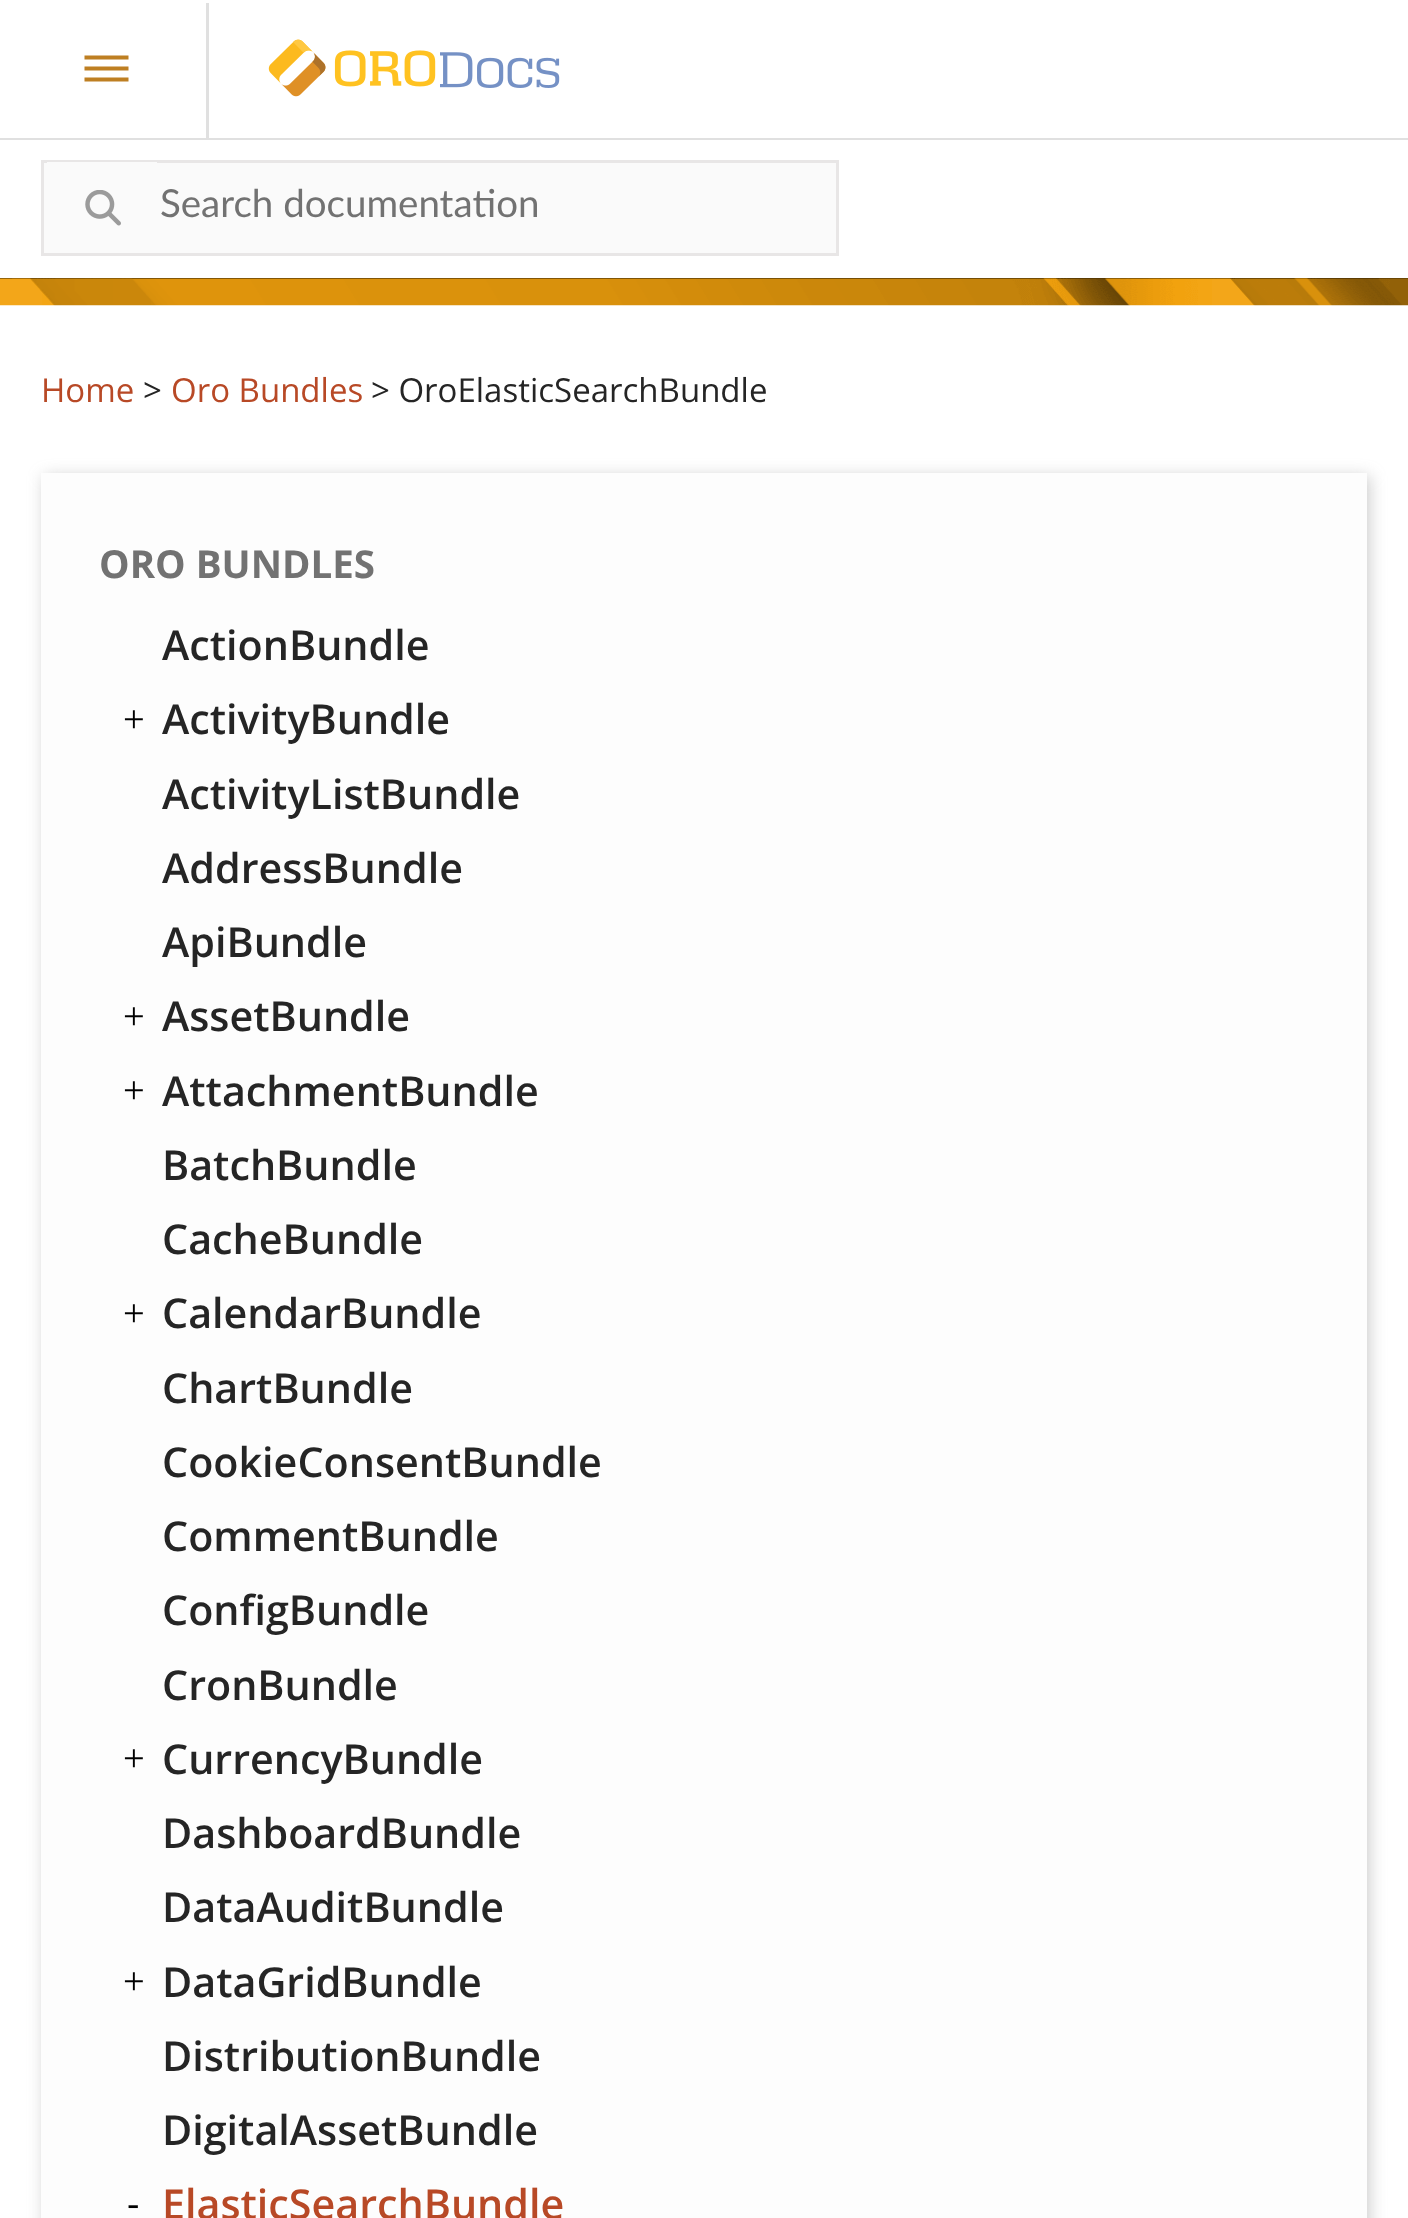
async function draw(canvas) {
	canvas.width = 1408;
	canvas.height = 2218;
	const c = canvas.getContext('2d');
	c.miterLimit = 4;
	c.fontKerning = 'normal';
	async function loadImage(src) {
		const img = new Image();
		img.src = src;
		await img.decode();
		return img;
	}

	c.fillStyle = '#fff';
	c.fillRect(0, 0, 1408, 2218);
	c.fillStyle = '#e0e0e0';
	c.fillRect(0, 138, 1408, 2);
	c.beginPath();
	c.moveTo(84.5, 57.5);
	c.lineTo(128.5, 57.5);
	c.moveTo(84.5, 68.5);
	c.lineTo(128.5, 68.5);
	c.moveTo(84.5, 79.5);
	c.lineTo(128.5, 79.5);
	c.strokeStyle = '#be7f22';
	c.lineWidth = 4.1;
	c.stroke();
	c.fillRect(206, 3, 3, 137);
	c.drawImage(await loadImage('img1.png'), 268, 39, 168, 58);
	c.drawImage(await loadImage('img2.png'), 440, 52, 120, 36);
	c.fillStyle = '#fafafa';
	c.beginPath();
	c.rect(42.5, 161.5, 795, 93);
	c.fill();
	c.strokeStyle = '#e8e6e6';
	c.lineWidth = 3;
	c.stroke();
	c.fillRect(47, 162, 110, 1);
	c.drawImage(await loadImage('img3.png'), 85, 190, 36, 36);
	c.font = '38.5px Lato';
	c.fillStyle = '#727272';
	c.fillText('Search documentation', 160, 217);
	c.drawImage(await loadImage('img4.png'), 0, 278, 1408, 28);
	c.font = '33px Open Sans';
	c.fillStyle = '#b84926';
	c.fillText('Home', 41, 402);
	c.fillStyle = '#252525';
	c.fillText('>', 143, 402);
	c.fillStyle = '#b84926';
	c.fillText('Oro Bundles', 171, 402);
	c.fillStyle = '#252525';
	c.fillText('> OroElasticSearchBundle', 371, 402);
	c.fillStyle = '#85858566';
	c.filter = 'blur(8px)';
	c.beginPath();
	c.rect(44, 476, 1326, 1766);
	c.fill();
	c.filter = 'none';
	c.fillStyle = '#fdfdfd';
	c.fillRect(41, 473, 1326, 1745);
	c.font = 'bold 38.5px Open Sans';
	c.fillStyle = '#727272';
	c.fillText('ORO BUNDLES', 99, 578);
	c.font = '600 41.25px Open Sans';
	c.fillStyle = '#252525';
	c.fillText('ActionBundle', 162, 660);
	c.font = '38.5px Liberation Serif';
	c.fillStyle = '#000';
	c.fillText('+', 123, 732);
	c.font = '600 41.25px Open Sans';
	c.fillStyle = '#252525';
	for (const [text, x, y] of [
		['ActivityBundle', 162, 734],
		['ActivityListBundle', 162, 809],
		['AddressBundle', 162, 883],
		['ApiBundle', 162, 957],
	]) {
		c.fillText(text, x, y);
	}
	c.font = '38.5px Liberation Serif';
	c.fillStyle = '#000';
	c.fillText('+', 123, 1029);
	c.font = '600 41.25px Open Sans';
	c.fillStyle = '#252525';
	c.fillText('AssetBundle', 162, 1031);
	c.font = '38.5px Liberation Serif';
	c.fillStyle = '#000';
	c.fillText('+', 123, 1103);
	c.font = '600 41.25px Open Sans';
	c.fillStyle = '#252525';
	for (const [text, x, y] of [
		['AttachmentBundle', 162, 1106],
		['BatchBundle', 162, 1180],
		['CacheBundle', 162, 1254],
	]) {
		c.fillText(text, x, y);
	}
	c.font = '38.5px Liberation Serif';
	c.fillStyle = '#000';
	c.fillText('+', 123, 1326);
	c.font = '600 41.25px Open Sans';
	c.fillStyle = '#252525';
	for (const [text, x, y] of [
		['CalendarBundle', 162, 1328],
		['ChartBundle', 162, 1403],
		['CookieConsentBundle', 162, 1477],
		['CommentBundle', 162, 1551],
		['ConfigBundle', 162, 1625],
		['CronBundle', 162, 1700],
	]) {
		c.fillText(text, x, y);
	}
	c.font = '38.5px Liberation Serif';
	c.fillStyle = '#000';
	c.fillText('+', 123, 1771);
	c.font = '600 41.25px Open Sans';
	c.fillStyle = '#252525';
	for (const [text, x, y] of [
		['CurrencyBundle', 162, 1774],
		['DashboardBundle', 162, 1848],
		['DataAuditBundle', 162, 1922],
	]) {
		c.fillText(text, x, y);
	}
	c.font = '38.5px Liberation Serif';
	c.fillStyle = '#000';
	c.fillText('+', 123, 1994);
	c.font = '600 41.25px Open Sans';
	c.fillStyle = '#252525';
	for (const [text, x, y] of [
		['DataGridBundle', 162, 1997],
		['DistributionBundle', 162, 2071],
		['DigitalAssetBundle', 162, 2145],
	]) {
		c.fillText(text, x, y);
	}
	c.font = '38.5px Open Sans';
	c.fillStyle = '#000';
	c.fillText('-', 127, 2217);
	c.font = '600 41.25px Open Sans';
	c.fillStyle = '#b84926';
	c.fillText('ElasticSearchBundle', 162, 2219);
}

draw(document.querySelector('canvas'));
